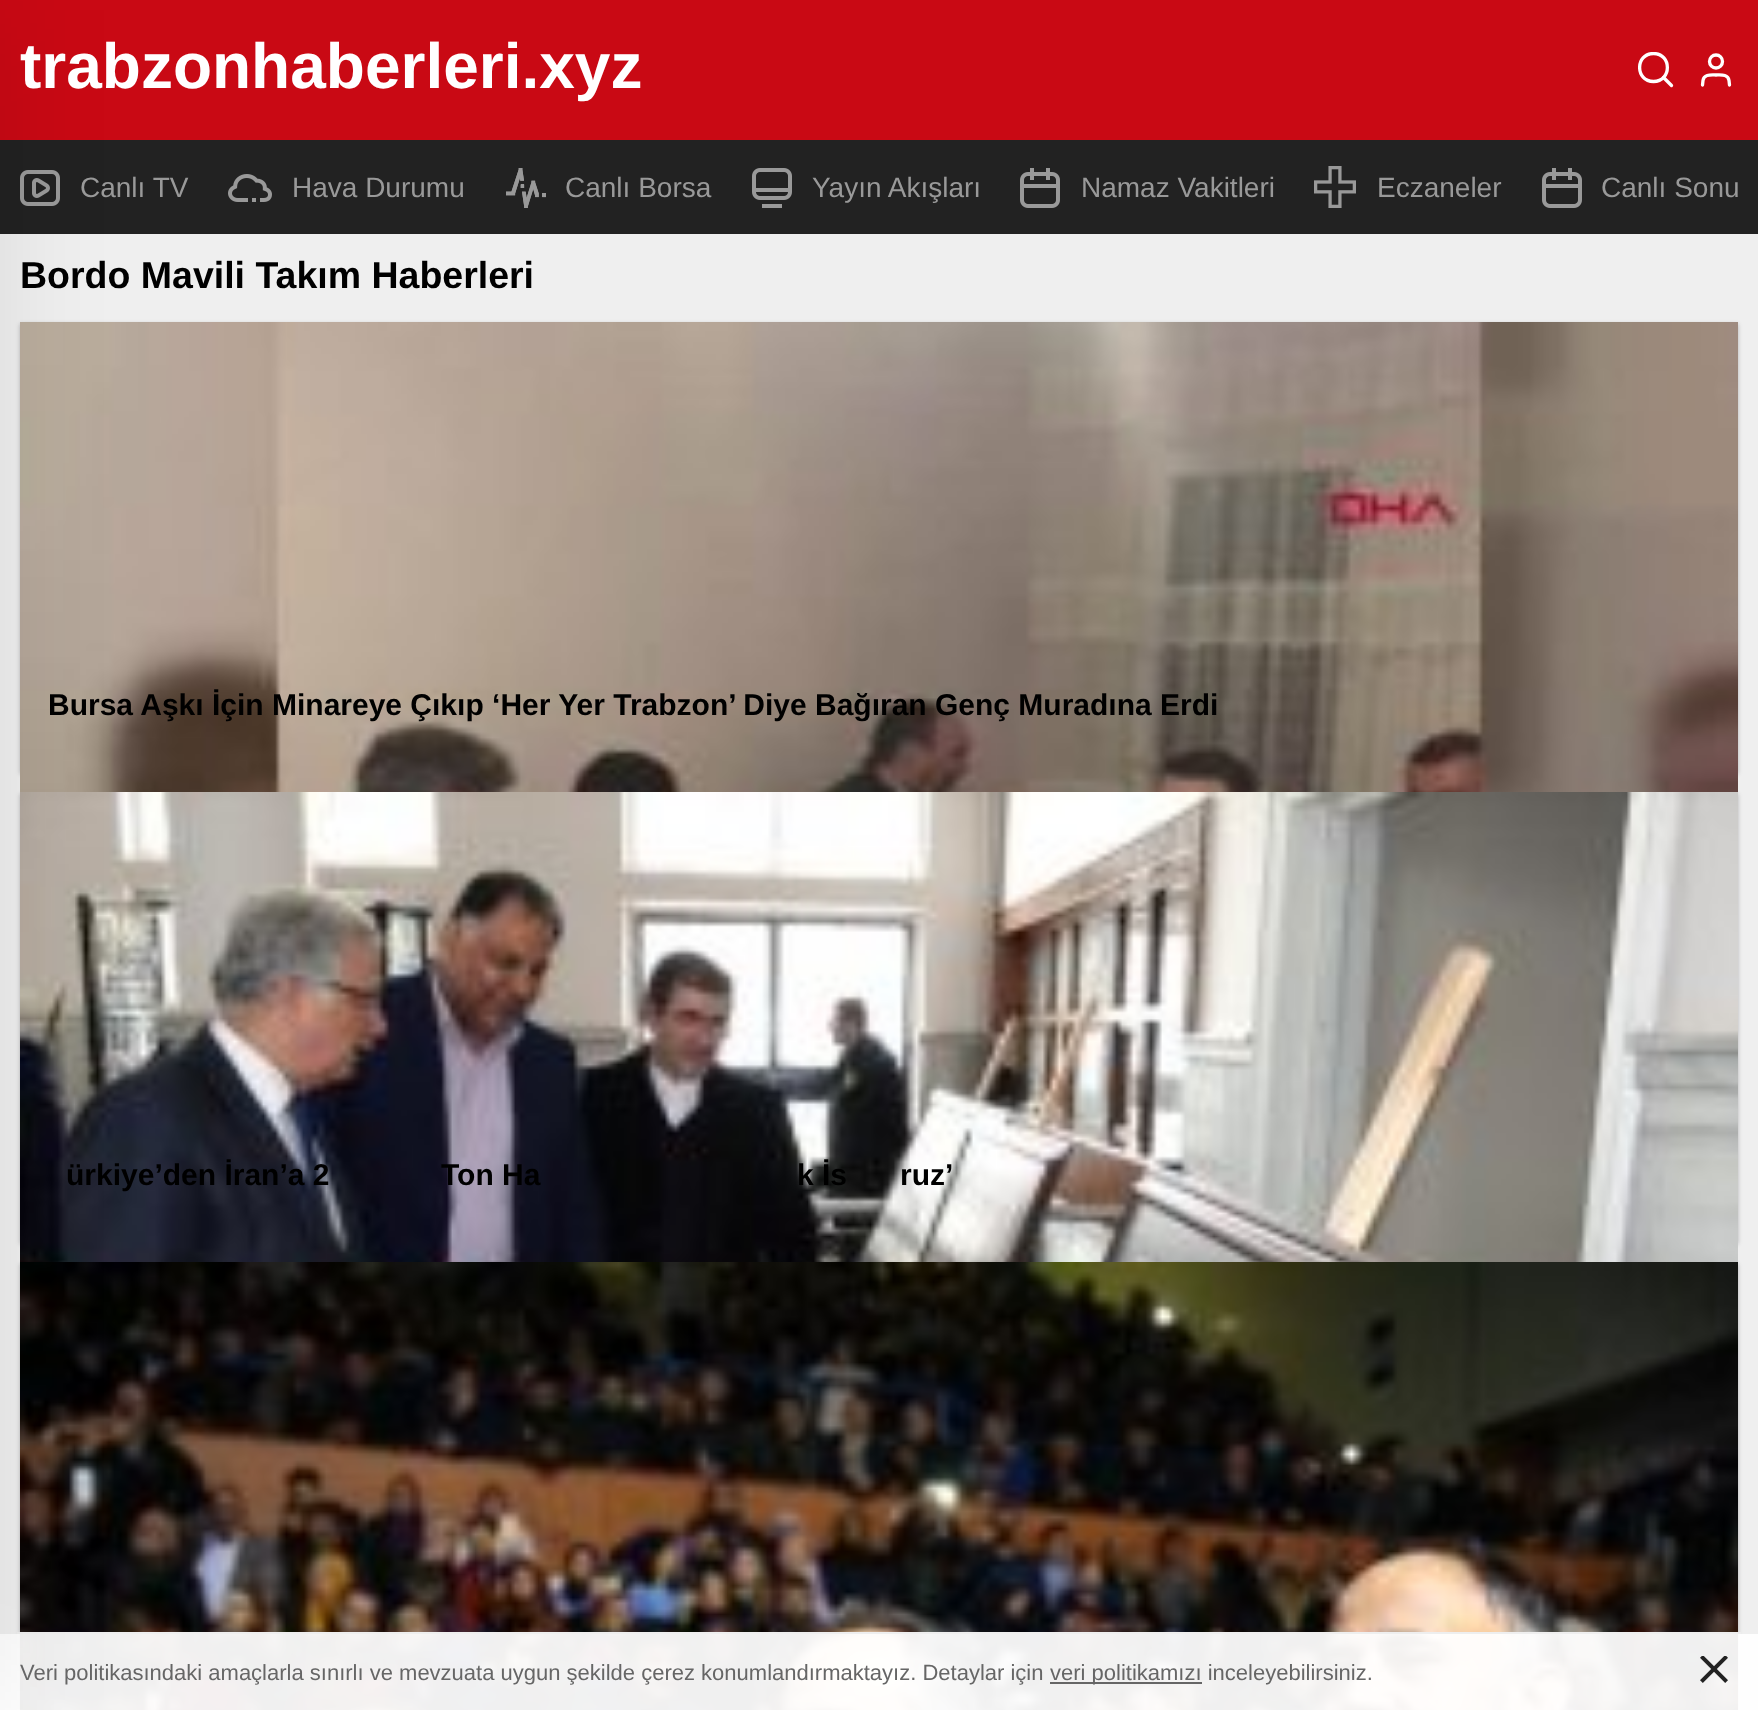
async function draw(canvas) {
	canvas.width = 1758;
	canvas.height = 1710;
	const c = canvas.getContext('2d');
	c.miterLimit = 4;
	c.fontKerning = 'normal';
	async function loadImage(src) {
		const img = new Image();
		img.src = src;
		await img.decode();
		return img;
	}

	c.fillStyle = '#efefef';
	c.fillRect(0, 0, 1758, 1710);
	c.fillStyle = '#c90914';
	c.fillRect(0, 0, 1758, 140);
	c.fillStyle = '#222';
	c.fillRect(0, 140, 1758, 94);
	c.drawImage(await loadImage('img1.png'), 20, 170, 40, 36);
	c.fillStyle = '#11151945';
	c.filter = 'blur(2px)';
	c.beginPath();
	c.rect(20, 324, 1718, 450);
	c.fill();
	c.filter = 'none';
	c.filter = 'blur(2px)';
	c.beginPath();
	c.rect(20, 794, 1718, 450);
	c.fill();
	c.filter = 'none';
	c.drawImage(await loadImage('img7.png'), 20, 322, 1718, 470);
	c.filter = 'blur(2px)';
	c.beginPath();
	c.rect(20, 1264, 1718, 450);
	c.fill();
	c.filter = 'none';
	c.drawImage(await loadImage('img8.png'), 20, 792, 1718, 470);
	c.drawImage(await loadImage('img9.png'), 20, 1262, 1718, 448);
	c.fillStyle = '#fffffff0';
	c.fillRect(0, 1634, 1758, 76);
	c.fillStyle = '#eee';
	c.fillRect(17, 1632, 1724, 2);
	c.fillStyle = '#0000001a';
	c.filter = 'blur(60px)';
	c.beginPath();
	c.rect(-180, 10, 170, 1690);
	c.fill();
	c.filter = 'none';
	c.font = 'bold 64px Liberation Sans';
	c.fillStyle = '#fff';
	c.fillText('trabzonhaberleri.xyz', 20, 88);
	c.save();
	c.beginPath();
	c.rect(1638, 52, 36, 36);
	c.clip();
	c.beginPath();
	c.moveTo(1653.5, 81.5);
	c.bezierCurveTo(1672, 81.5, 1672, 53.5, 1653.5, 53.5);
	c.bezierCurveTo(1635, 53.5, 1635, 81.5, 1653.5, 81.5);
	c.closePath();
	c.strokeStyle = '#fff';
	c.lineWidth = 3.3;
	c.lineCap = 'round';
	c.lineJoin = 'round';
	c.stroke();
	c.restore();
	c.beginPath();
	c.moveTo(1663.5, 77.5);
	c.lineTo(1671.5, 85.5);
	c.strokeStyle = '#fff';
	c.lineWidth = 3.3;
	c.lineCap = 'round';
	c.lineJoin = 'round';
	c.stroke();
	c.beginPath();
	c.moveTo(1729.5, 85);
	c.lineTo(1729, 80.5);
	c.bezierCurveTo(1728, 74, 1721, 75, 1716, 75);
	c.bezierCurveTo(1711, 75, 1704, 74, 1703, 80.5);
	c.lineTo(1702.5, 85);
	c.stroke();
	c.beginPath();
	c.arc(1716, 61.5, 6.5, 0, 2 * Math.PI);
	c.stroke();
	c.font = '28px Liberation Sans';
	c.fillStyle = '#999';
	c.fillText('Canlı TV', 80, 197);
	c.drawImage(await loadImage('img2.png'), 228, 174, 44, 28);
	c.fillText('Hava Durumu', 292, 197);
	c.drawImage(await loadImage('img3.png'), 506, 168, 40, 40);
	c.fillText('Canlı Borsa', 565, 197);
	c.drawImage(await loadImage('img4.png'), 752, 168, 40, 40);
	c.fillText('Yayın Akışları', 812, 197);
	c.drawImage(await loadImage('img5.png'), 1020, 168, 40, 40);
	c.fillText('Namaz Vakitleri', 1081, 197);
	c.drawImage(await loadImage('img6.png'), 1314, 166, 42, 42);
	c.fillText('Eczaneler', 1377, 197);
	c.drawImage(await loadImage('img5.png'), 1542, 168, 40, 40);
	c.fillText('Canlı Sonu', 1601, 197);
	c.font = 'bold 37.5px Liberation Sans';
	c.fillStyle = '#000';
	c.fillText('Bordo Mavili Takım Haberleri', 20, 288);
	c.font = 'bold 30px Liberation Sans';
	for (const [text, x, y] of [
		['Bursa Aşkı İçin Minareye Çıkıp ‘Her Yer Trabzon’ Diye Bağıran Genç Muradına Erdi', 48, 715],
		['ürkiye’den İran’a 2', 66, 1185],
		['Ton Ha', 441, 1185],
		['k İs', 797, 1185],
		['ruz’', 900, 1185],
	]) {
		c.fillText(text, x, y);
	}
	c.font = '22px Liberation Sans';
	c.fillStyle = '#666';
	c.fillText('Veri politikasındaki amaçlarla sınırlı ve mevzuata uygun şekilde çerez konumlandırmaktayız. Detaylar için', 20, 1680);
	c.fillRect(1050, 1682, 152, 2);
	c.fillText('veri politikamızı inceleyebilirsiniz.', 1050, 1680);
	c.drawImage(await loadImage('img10.png'), 1700, 1656, 28, 27);
}

draw(document.querySelector('canvas'));
